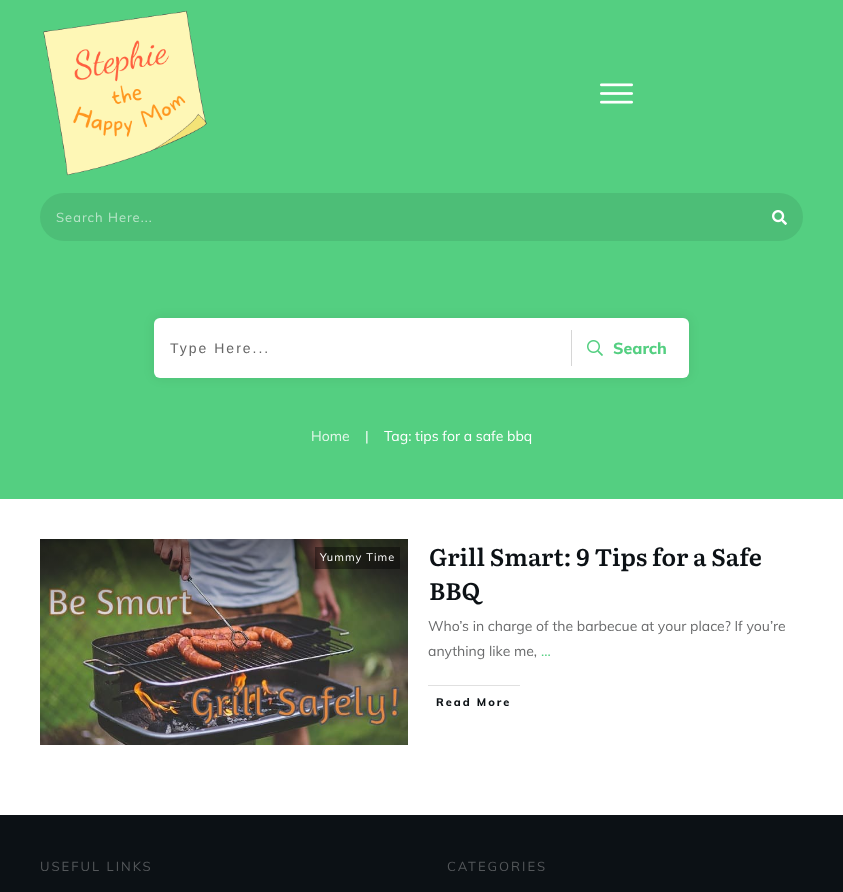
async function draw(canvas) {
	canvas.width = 843;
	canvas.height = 892;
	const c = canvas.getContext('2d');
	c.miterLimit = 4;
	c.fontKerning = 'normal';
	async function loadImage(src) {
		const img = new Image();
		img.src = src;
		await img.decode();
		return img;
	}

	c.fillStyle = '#fff';
	c.fillRect(0, 0, 843, 892);
	c.fillStyle = '#54cf81';
	c.fillRect(0, 0, 843, 499);
	c.drawImage(await loadImage('img1.png'), 43, 10, 164, 166);
	c.drawImage(await loadImage('img2.png'), 600, 83, 33, 21);
	c.fillStyle = '#4dbe77';
	c.beginPath();
	c.roundRect(40, 193, 763, 48, 24);
	c.fill();
	c.letterSpacing = '1px';
	c.font = '13px Muli';
	c.fillStyle = '#b8e5c9';
	c.fillText('Search Here...', 56, 222);
	c.drawImage(await loadImage('img3.png'), 772, 210, 15, 15);
	c.fillStyle = '#00000014';
	c.filter = 'blur(5.5px)';
	c.beginPath();
	c.roundRect(154, 318, 535, 60, 6);
	c.fill();
	c.filter = 'none';
	c.fillStyle = '#fff';
	c.beginPath();
	c.roundRect(154, 318, 535, 60, 6);
	c.fill();
	c.letterSpacing = '2px';
	c.font = '14px Liberation Sans';
	c.fillStyle = '#666';
	c.fillText('Type Here...', 170, 353);
	c.fillStyle = '#d6d6d6';
	c.fillRect(571, 330, 1, 36);
	c.drawImage(await loadImage('img4.png'), 587, 340, 16, 16);
	c.letterSpacing = '0px';
	c.font = '800 16px Muli';
	c.fillStyle = '#54cf81';
	c.fillText('Search', 613, 354);
	c.font = '14px Muli';
	c.fillStyle = '#e5f8ec';
	c.fillText('Home', 311, 441);
	c.fillStyle = '#fff';
	c.fillText('|', 365, 441);
	c.fillText('Tag: tips for a safe bbq', 384, 441);
	c.drawImage(await loadImage('img5.png'), 40, 539, 368, 206);
	c.fillStyle = '#00000066';
	c.fillRect(315, 547, 85, 22);
	c.letterSpacing = '1px';
	c.font = '11px Muli';
	c.fillStyle = '#fff';
	c.fillText('Yummy Time', 320, 561);
	c.letterSpacing = '0px';
	c.font = '600 24px Literata';
	c.fillStyle = '#0c1115';
	c.fillText('Grill Smart: 9 Tips for a Safe', 429, 566);
	c.fillText('BBQ', 429, 600);
	c.font = '14px Muli';
	c.fillStyle = '#6a6b6c';
	c.fillText('Who’s in charge of the barbecue at your place? If you’re', 428, 631);
	c.fillText('anything like me,', 428, 656);
	c.fillStyle = '#54cf81';
	c.fillText('...', 541, 656);
	c.fillStyle = '#e0e0e0';
	c.fillRect(428, 685, 92, 1);
	c.letterSpacing = '2px';
	c.font = '800 11px Muli';
	c.fillStyle = '#0c1115';
	c.fillText('Read More', 436, 706);
	c.fillRect(0, 815, 843, 77);
	c.font = '13px Muli';
	c.fillStyle = '#55585b';
	c.fillText('USEFUL LINKS', 40, 871);
	c.fillText('CATEGORIES', 447, 871);
}

draw(document.querySelector('canvas'));
